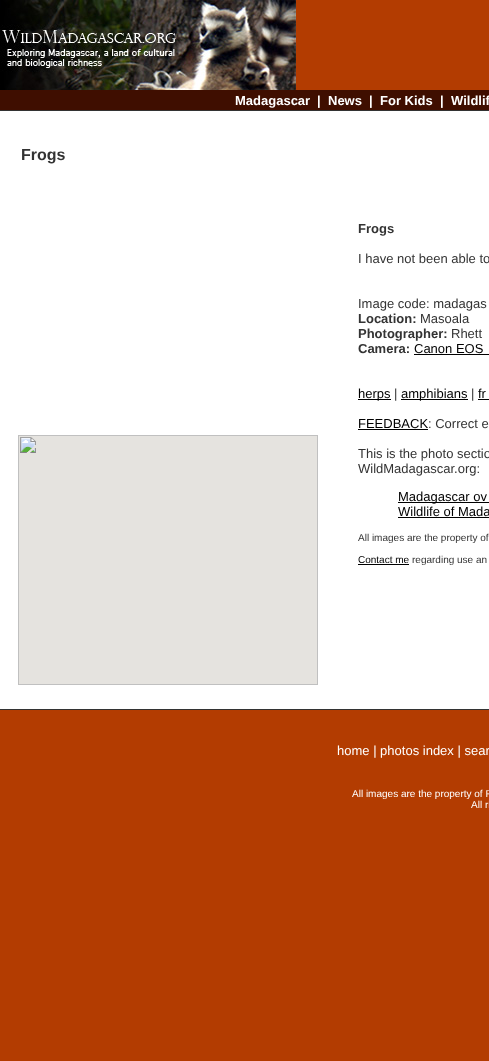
async function draw(canvas) {
	canvas.width = 489;
	canvas.height = 1061;
	const c = canvas.getContext('2d');
	c.miterLimit = 4;
	c.fontKerning = 'normal';
	async function loadImage(src) {
		const img = new Image();
		img.src = src;
		await img.decode();
		return img;
	}

	c.fillStyle = '#b33c01';
	c.fillRect(0, 0, 489, 1061);
	c.drawImage(await loadImage('img1.png'), 0, 0, 296, 90);
	c.fillStyle = '#3f0e00';
	c.fillRect(0, 90, 489, 20);
	c.font = 'bold 13px Liberation Sans';
	c.fillStyle = '#fff';
	for (const [text, x, y] of [
		['Madagascar', 235, 105],
		['|', 317, 105],
		['News', 328, 105],
		['|', 369, 105],
		['For Kids', 380, 105],
		['|', 440, 105],
		['Wildlif', 451, 105],
	]) {
		c.fillText(text, x, y);
	}
	c.fillStyle = '#333';
	c.fillRect(0, 110, 489, 1);
	c.fillStyle = '#fff';
	c.fillRect(0, 111, 489, 598);
	c.font = 'bold 16px Liberation Sans';
	c.fillStyle = '#333';
	c.fillText('Frogs', 21, 160);
	c.drawImage(await loadImage('img2.png'), 18, 435, 300, 250);
	c.font = 'bold 13px Liberation Sans';
	c.fillText('Frogs', 358, 233);
	c.font = '13px Liberation Sans';
	c.fillText('I have not been able to', 358, 263);
	c.fillText('Image code: madagas', 358, 308);
	c.font = 'bold 13px Liberation Sans';
	c.fillText('Location:', 358, 323);
	c.font = '13px Liberation Sans';
	c.fillText('Masoala', 420, 323);
	c.font = 'bold 13px Liberation Sans';
	c.fillText('Photographer:', 358, 338);
	c.font = '13px Liberation Sans';
	c.fillText('Rhett', 451, 338);
	c.font = 'bold 13px Liberation Sans';
	c.fillText('Camera:', 358, 353);
	c.font = '13px Liberation Sans';
	c.fillStyle = '#000';
	c.fillText('Canon EOS', 414, 353);
	c.fillRect(414, 354, 75, 1);
	c.fillRect(358, 399, 33, 1);
	c.fillText('herps', 358, 398);
	c.fillStyle = '#333';
	c.fillText('|', 394, 398);
	c.fillStyle = '#000';
	c.fillRect(401, 399, 67, 1);
	c.fillText('amphibians', 401, 398);
	c.fillStyle = '#333';
	c.fillText('|', 471, 398);
	c.fillStyle = '#000';
	c.fillText('fr', 478, 398);
	c.fillRect(478, 399, 11, 1);
	c.fillText('FEEDBACK', 358, 428);
	c.fillRect(358, 429, 70, 1);
	c.fillStyle = '#333';
	for (const [text, x, y] of [
		[': Correct e', 428, 428],
		['This is the photo sectio', 358, 458],
		['WildMadagascar.org:', 358, 473],
	]) {
		c.fillText(text, x, y);
	}
	c.fillStyle = '#000';
	c.fillRect(398, 502, 91, 1);
	c.fillText('Madagascar ov', 398, 501);
	c.fillText('Wildlife of Mada', 398, 516);
	c.fillRect(398, 517, 91, 1);
	c.font = '10px Liberation Sans';
	c.fillStyle = '#333';
	c.fillText('All images are the property of', 358, 541);
	c.fillStyle = '#000';
	c.fillText('Contact me', 358, 563);
	c.fillRect(358, 564, 51, 1);
	c.fillStyle = '#333';
	c.fillText('regarding use an', 412, 563);
	c.fillRect(0, 709, 489, 1);
	c.font = '13px Liberation Sans';
	c.fillStyle = '#fff';
	c.fillText('home | photos index | sear', 337, 755);
	c.font = '10px Liberation Sans';
	c.fillText('All images are the property of R', 352, 797);
	c.fillText('All ri', 471, 808);
}

draw(document.querySelector('canvas'));
